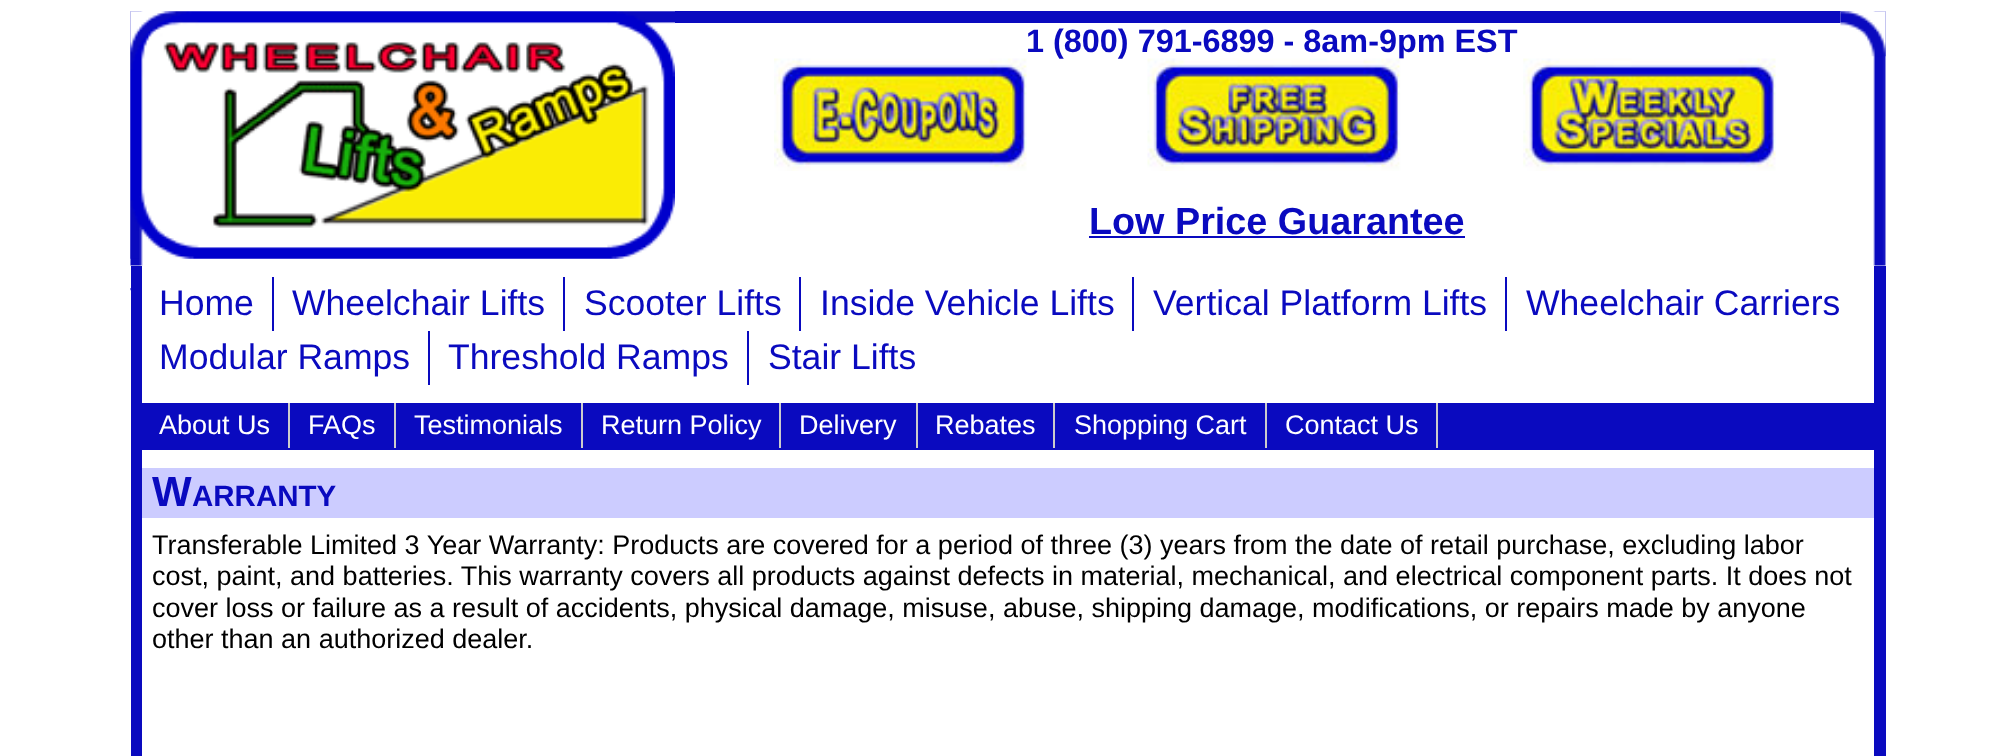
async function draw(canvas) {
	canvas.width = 2012;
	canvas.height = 756;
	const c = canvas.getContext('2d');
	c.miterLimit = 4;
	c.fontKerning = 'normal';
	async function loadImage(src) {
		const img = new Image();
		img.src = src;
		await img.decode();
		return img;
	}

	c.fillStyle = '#fff';
	c.fillRect(0, 0, 2012, 756);
	c.drawImage(await loadImage('img1.png'), 130, 11, 13, 255);
	c.drawImage(await loadImage('img2.png'), 130, 11, 545, 248);
	c.fillStyle = '#0a0abf';
	c.fillRect(675, 11, 1166, 12);
	c.font = 'bold 32.4px Liberation Sans';
	c.fillText('1 (800) 791-6899 - 8am-9pm EST', 1026, 52);
	c.drawImage(await loadImage('img3.png'), 774, 58, 253, 113);
	c.drawImage(await loadImage('img4.png'), 1147, 58, 257, 113);
	c.drawImage(await loadImage('img5.png'), 1523, 58, 253, 113);
	c.font = 'bold 37.75px Liberation Sans';
	c.fillText('Low Price Guarantee', 1089, 234);
	c.fillRect(1089, 236, 376, 2);
	c.drawImage(await loadImage('img6.png'), 1840, 11, 46, 255);
	c.drawImage(await loadImage('img7.png'), 1840, 11, 46, 46);
	c.fillRect(131, 266, 11, 490);
	c.drawImage(await loadImage('img8.png'), 130, 288, 1, 3);
	c.fillRect(272, 277, 2, 54);
	c.font = '35.6px Liberation Sans';
	c.fillText('Home', 159, 315);
	c.fillRect(563, 277, 2, 54);
	c.fillText('Wheelchair Lifts', 292, 315);
	c.fillRect(799, 277, 2, 54);
	c.fillText('Scooter Lifts', 584, 315);
	c.fillRect(1132, 277, 2, 54);
	c.fillText('Inside Vehicle Lifts', 820, 315);
	c.fillRect(1505, 277, 2, 54);
	c.fillText('Vertical Platform Lifts', 1153, 315);
	c.fillText('Wheelchair Carriers', 1526, 315);
	c.fillRect(428, 331, 2, 54);
	c.fillText('Modular Ramps', 159, 369);
	c.fillRect(747, 331, 2, 54);
	c.fillText('Threshold Ramps', 448, 369);
	c.fillText('Stair Lifts', 768, 369);
	c.fillRect(142, 403, 1732, 47);
	c.fillStyle = '#ccc';
	c.fillRect(288, 403, 2, 45);
	c.font = '27px Liberation Sans';
	c.fillStyle = '#fff';
	c.fillText('About Us', 159, 434);
	c.fillStyle = '#ccc';
	c.fillRect(394, 403, 2, 45);
	c.fillStyle = '#fff';
	c.fillText('FAQs', 308, 434);
	c.fillStyle = '#ccc';
	c.fillRect(581, 403, 2, 45);
	c.fillStyle = '#fff';
	c.fillText('Testimonials', 414, 434);
	c.fillStyle = '#ccc';
	c.fillRect(779, 403, 2, 45);
	c.fillStyle = '#fff';
	c.fillText('Return Policy', 601, 434);
	c.fillStyle = '#ccc';
	c.fillRect(916, 403, 2, 45);
	c.fillStyle = '#fff';
	c.fillText('Delivery', 799, 434);
	c.fillStyle = '#ccc';
	c.fillRect(1053, 403, 2, 45);
	c.fillStyle = '#fff';
	c.fillText('Rebates', 935, 434);
	c.fillStyle = '#ccc';
	c.fillRect(1265, 403, 2, 45);
	c.fillStyle = '#fff';
	c.fillText('Shopping Cart', 1074, 434);
	c.fillStyle = '#ccc';
	c.fillRect(1436, 403, 2, 45);
	c.fillStyle = '#fff';
	c.fillText('Contact Us', 1285, 434);
	c.fillStyle = '#ccf';
	c.fillRect(142, 468, 1732, 50);
	c.font = 'bold 42px Liberation Sans';
	c.fillStyle = '#0a0abf';
	c.fillText('W', 152, 506);
	c.font = 'bold 29.5px Liberation Sans';
	c.fillText('ARRANTY', 192, 506);
	c.font = '27px Liberation Sans';
	c.fillStyle = '#000';
	for (const [text, x, y] of [
		['Transferable Limited 3 Year Warranty: Products are covered for a period of three (3) years from the date of retail purchase, excluding labor', 152, 554],
		['cost, paint, and batteries. This warranty covers all products against defects in material, mechanical, and electrical component parts. It does not', 152, 585],
		['cover loss or failure as a result of accidents, physical damage, misuse, abuse, shipping damage, modifications, or repairs made by anyone', 152, 617],
		['other than an authorized dealer.', 152, 648],
	]) {
		c.fillText(text, x, y);
	}
	c.fillStyle = '#0a0abf';
	c.fillRect(1874, 266, 12, 490);
}

draw(document.querySelector('canvas'));
